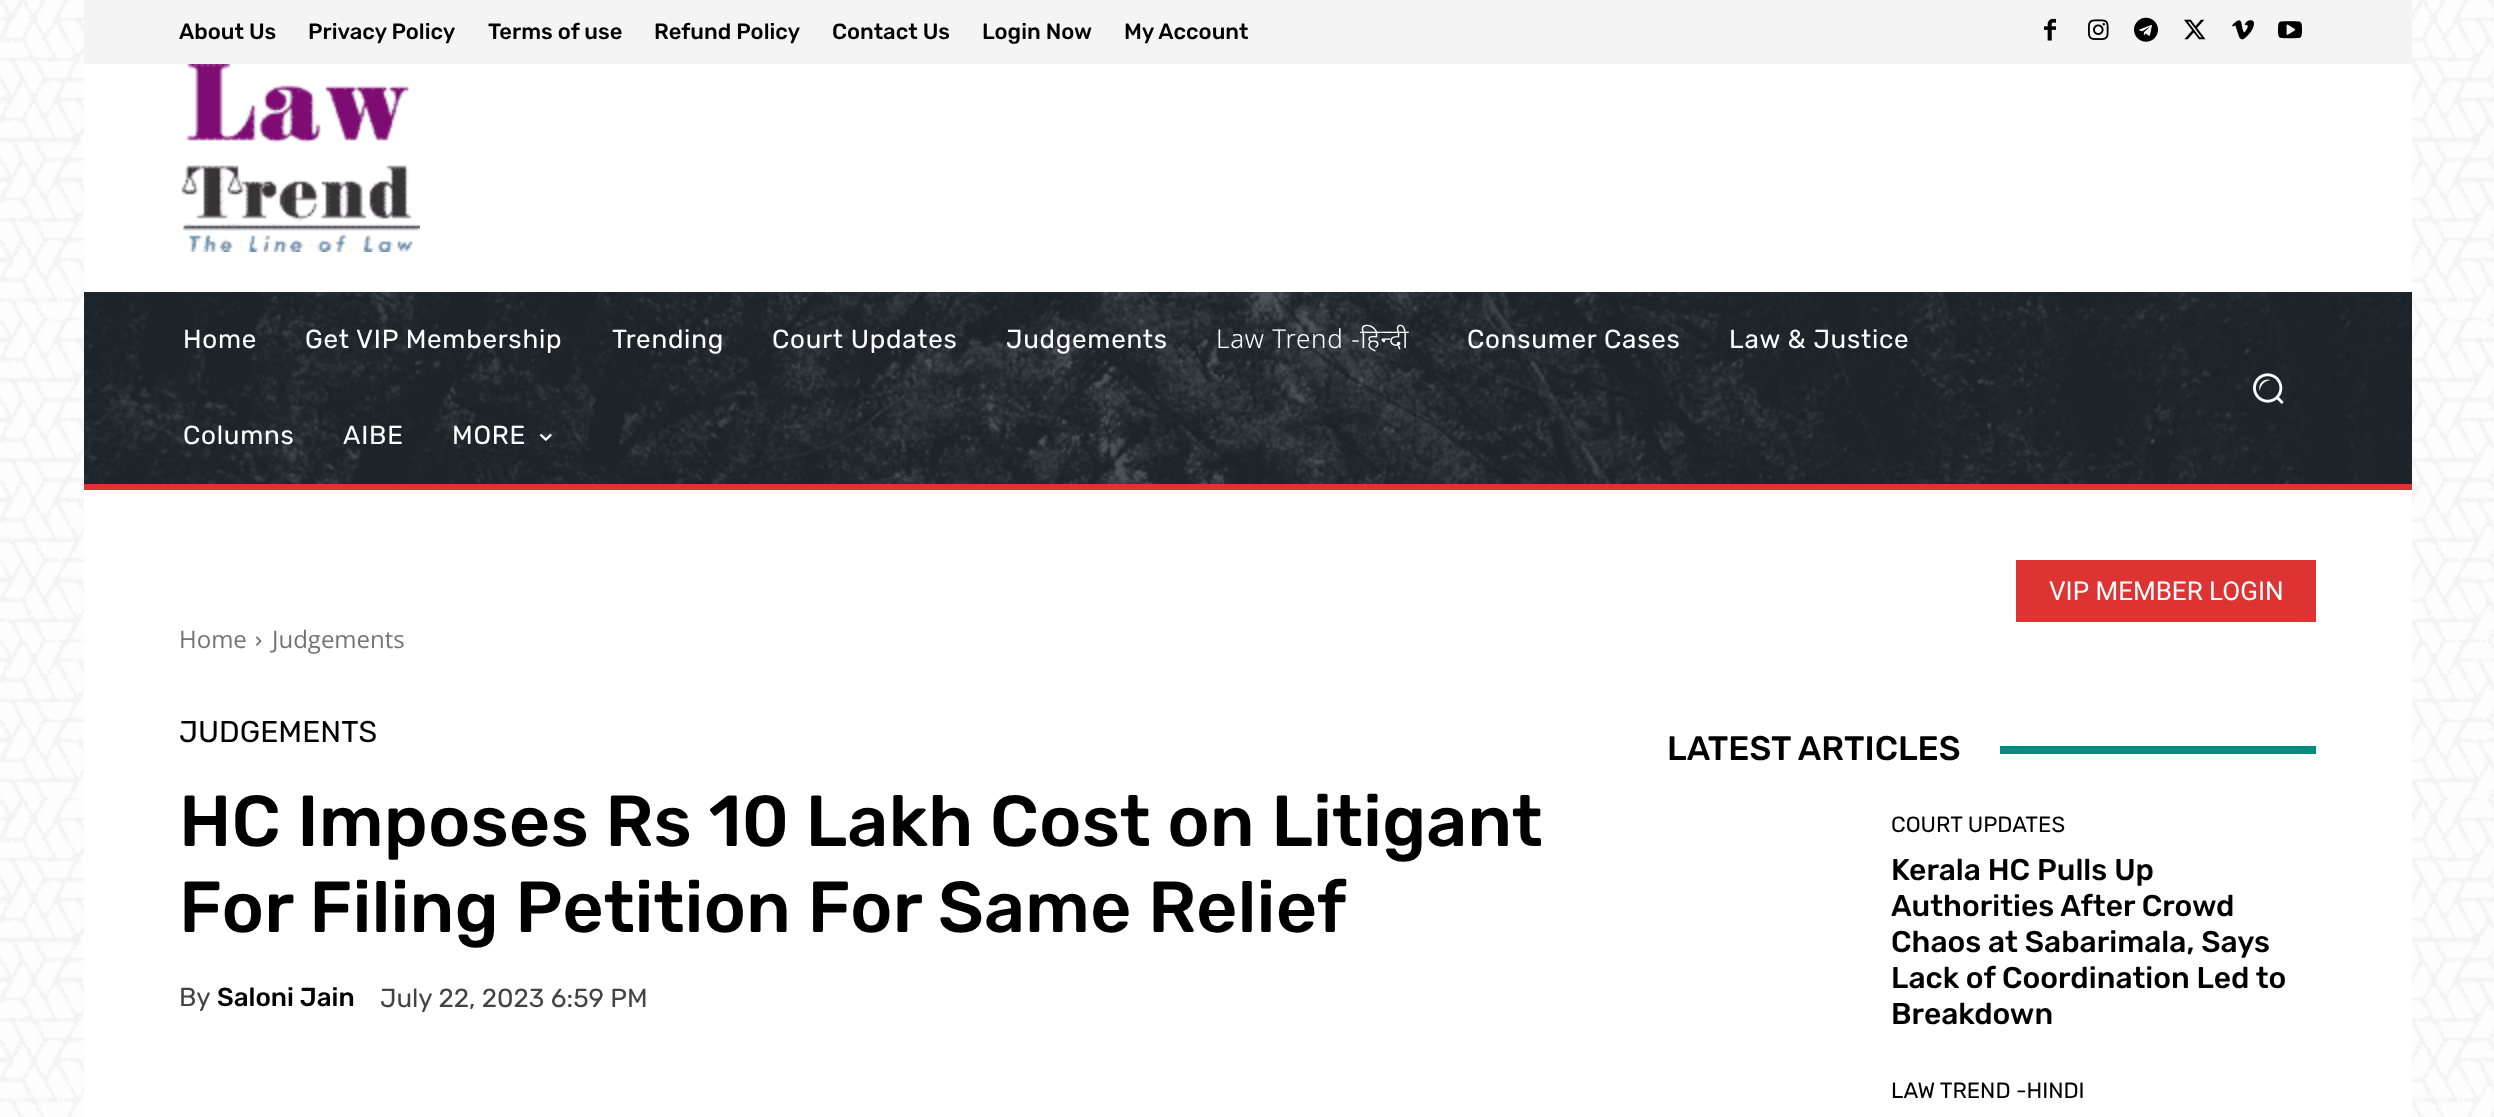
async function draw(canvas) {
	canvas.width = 2494;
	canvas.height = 1117;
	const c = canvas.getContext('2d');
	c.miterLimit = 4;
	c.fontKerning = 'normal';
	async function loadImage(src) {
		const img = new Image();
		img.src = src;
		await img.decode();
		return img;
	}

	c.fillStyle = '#fff';
	c.fillRect(0, 0, 2494, 1117);
	c.drawImage(await loadImage('img1.png'), 0, 0, 2494, 1117);
	c.fillStyle = '#f4f4f4';
	c.fillRect(84, 0, 2328, 64);
	c.font = '500 22px Rubik';
	c.fillStyle = '#000';
	for (const [text, x, y] of [
		['About Us', 179, 39],
		['Privacy Policy', 308, 39],
		['Terms of use', 488, 39],
		['Refund Policy', 654, 39],
		['Contact Us', 832, 39],
		['Login Now', 982, 39],
		['My Account', 1124, 39],
	]) {
		c.fillText(text, x, y);
	}
	c.drawImage(await loadImage('img2.png'), 2044, 18, 12, 23);
	c.drawImage(await loadImage('img3.png'), 2088, 19, 21, 21);
	c.drawImage(await loadImage('img4.png'), 2134, 17, 24, 25);
	c.drawImage(await loadImage('img5.png'), 2184, 19, 22, 21);
	c.drawImage(await loadImage('img6.png'), 2232, 20, 22, 20);
	c.drawImage(await loadImage('img7.png'), 2278, 21, 24, 18);
	c.fillStyle = '#fff';
	c.fillRect(84, 64, 2328, 1053);
	c.drawImage(await loadImage('img8.png'), 181, 64, 239, 188);
	c.fillStyle = '#232d35';
	c.fillRect(84, 292, 2328, 192);
	c.drawImage(await loadImage('img9.png'), 84, 292, 2328, 192);
	c.letterSpacing = '0.75px';
	c.font = '26px Rubik';
	c.fillStyle = '#fff';
	for (const [text, x, y] of [
		['Home', 183, 348],
		['Get VIP Membership', 305, 348],
		['Trending', 612, 348],
		['Court Updates', 772, 348],
		['Judgements', 1006, 348],
	]) {
		c.fillText(text, x, y);
	}
	c.font = '300 26px Noto Sans';
	c.fillText('Law Trend -हिन्दी', 1216, 348);
	c.font = '26px Rubik';
	for (const [text, x, y] of [
		['Consumer Cases', 1467, 348],
		['Law & Justice', 1729, 348],
		['Columns', 183, 444],
		['AIBE', 343, 444],
		['MORE', 452, 444],
	]) {
		c.fillText(text, x, y);
	}
	c.drawImage(await loadImage('img10.png'), 540, 434, 12, 7);
	c.drawImage(await loadImage('img11.png'), 2253, 373, 31, 31);
	c.fillStyle = '#d33';
	c.fillRect(84, 484, 2328, 6);
	c.fillRect(2016, 560, 300, 62);
	c.letterSpacing = '0px';
	c.font = '26px Roboto';
	c.fillStyle = '#fff';
	c.fillText('VIP MEMBER LOGIN', 2049, 600);
	c.font = '24px Open Sans';
	c.fillStyle = '#747474';
	c.fillText('Home', 179, 648);
	c.drawImage(await loadImage('img12.png'), 256, 636, 6, 10);
	c.fillText('Judgements', 272, 648);
	c.font = '30px Rubik';
	c.fillStyle = '#000';
	c.fillText('JUDGEMENTS', 179, 742);
	c.font = '500 72px Rubik';
	c.fillText('HC Imposes Rs 10 Lakh Cost on Litigant', 179, 846);
	c.fillText('For Filing Petition For Same Relief', 179, 932);
	c.font = '26px Rubik';
	c.fillStyle = '#444';
	c.fillText('By', 179, 1006);
	c.font = '500 26px Rubik';
	c.fillStyle = '#000';
	c.fillText('Saloni Jain', 217, 1006);
	c.font = '26px Rubik';
	c.fillStyle = '#444';
	c.fillText('July 22, 2023 6:59 PM', 380, 1007);
	c.font = '500 34px Rubik';
	c.fillStyle = '#000';
	c.fillText('LATEST ARTICLES', 1667, 760);
	c.fillStyle = '#008d7f';
	c.fillRect(2000, 746, 316, 8);
	c.font = '22px Rubik';
	c.fillStyle = '#000';
	c.fillText('COURT UPDATES', 1891, 832);
	c.font = '500 30px Rubik';
	for (const [text, x, y] of [
		['Kerala HC Pulls Up', 1891, 880],
		['Authorities After Crowd', 1891, 916],
		['Chaos at Sabarimala, Says', 1891, 952],
		['Lack of Coordination Led to', 1891, 988],
		['Breakdown', 1891, 1024],
	]) {
		c.fillText(text, x, y);
	}
	c.font = '22px Rubik';
	c.fillText('LAW TREND -HINDI', 1891, 1098);
}

draw(document.querySelector('canvas'));
